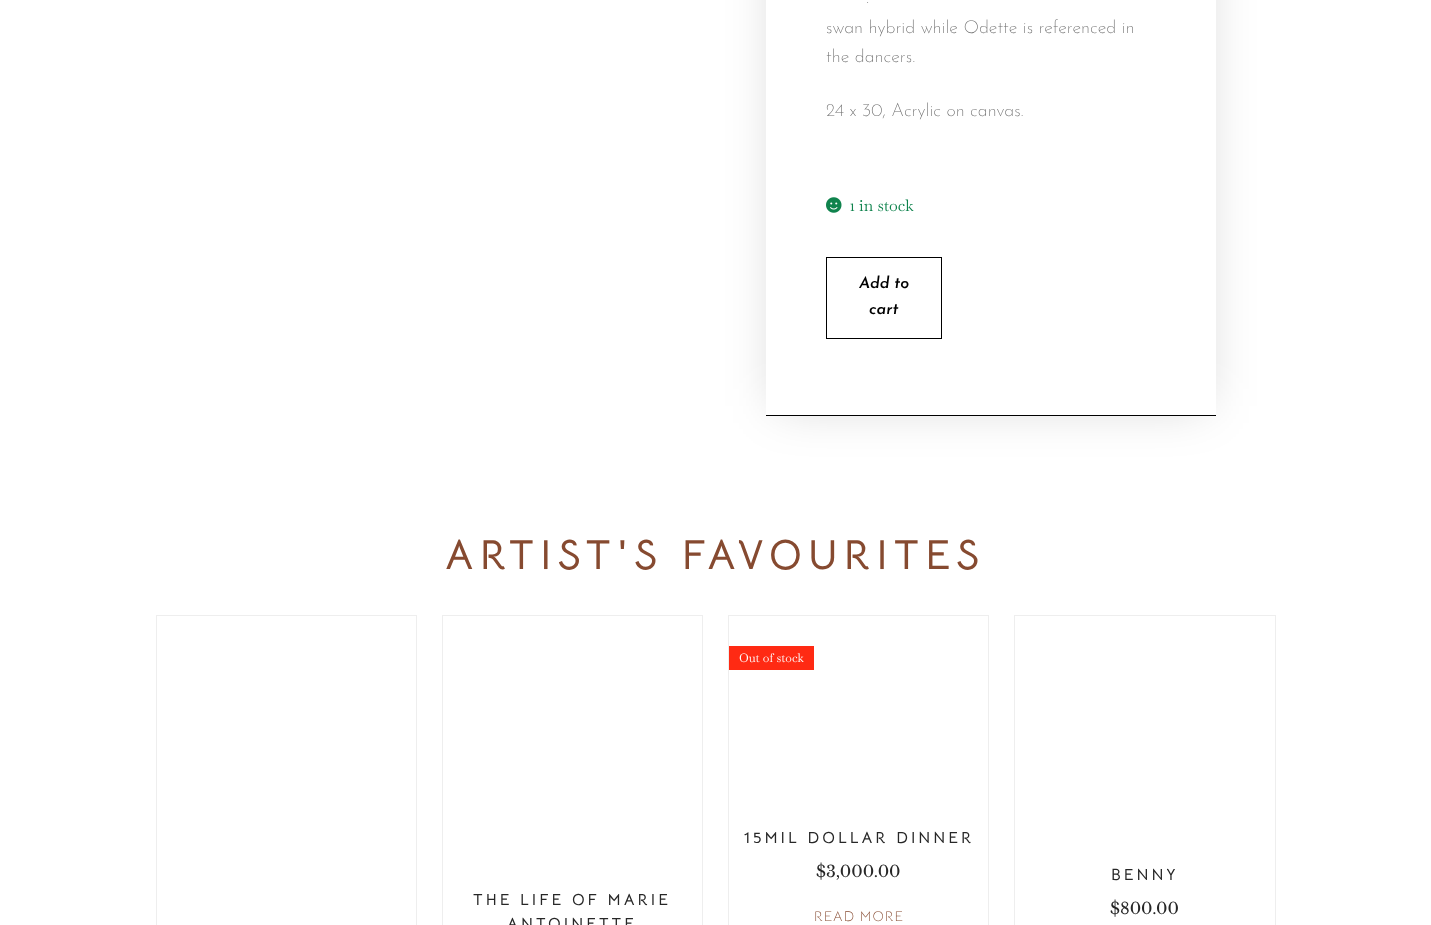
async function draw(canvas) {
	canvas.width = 1431;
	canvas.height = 925;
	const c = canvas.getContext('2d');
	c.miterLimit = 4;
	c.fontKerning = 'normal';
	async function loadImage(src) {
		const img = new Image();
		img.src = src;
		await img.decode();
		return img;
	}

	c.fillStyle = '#fff';
	c.fillRect(0, 0, 1431, 925);
	c.save();
	c.beginPath();
	c.moveTo(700, 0);
	c.lineTo(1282, 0);
	c.lineTo(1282, 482);
	c.lineTo(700, 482);
	c.closePath();
	c.moveTo(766, -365);
	c.lineTo(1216, -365);
	c.lineTo(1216, 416);
	c.lineTo(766, 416);
	c.closePath();
	c.clip('evenodd');
	c.fillStyle = '#0000002b';
	c.filter = 'blur(25px)';
	c.beginPath();
	c.rect(776, -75, 430, 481);
	c.fill();
	c.filter = 'none';
	c.restore();
	c.fillStyle = '#000';
	c.fillRect(766, 415, 450, 1);
	c.font = '200 18px Josefin Sans';
	c.fillStyle = '#6d6d6d';
	for (const [text, x, y] of [
		['.', 866, 3],
		['swan hybrid while Odette is referenced in', 826, 33],
		['the dancers.', 826, 62],
		['24 x 30, Acrylic on canvas.', 826, 116],
	]) {
		c.fillText(text, x, y);
	}
	c.drawImage(await loadImage('img1.png'), 826, 197, 16, 16);
	c.font = '16px Baskervville';
	c.fillStyle = '#0f834d';
	c.fillText('1 in stock', 850, 211);
	c.strokeStyle = '#000';
	c.strokeRect(826.5, 257.5, 115, 81);
	c.font = 'italic 600 16px Josefin Sans';
	c.fillStyle = '#000';
	c.fillText('Add to', 859, 288);
	c.fillText('cart', 869, 314);
	c.letterSpacing = '6px';
	c.font = 'bold 41.9px Bellota Text';
	c.fillStyle = '#864a30';
	c.fillText('ARTIST\'S FAVOURITES', 445, 569);
	c.strokeStyle = '#eee';
	c.strokeRect(156.5, 615.5, 260, 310);
	c.strokeRect(442.5, 615.5, 260, 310);
	c.letterSpacing = '3px';
	c.font = 'bold 16px Bellota Text';
	c.fillStyle = '#272727';
	c.fillText('THE LIFE OF MARIE', 473, 905);
	c.fillText('ANTOINETTE', 507, 929);
	c.strokeRect(728.5, 615.5, 260, 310);
	c.fillStyle = '#ff2a13';
	c.fillRect(729, 646, 85, 24);
	c.letterSpacing = '0px';
	c.font = '12px Baskervville';
	c.fillStyle = '#fff';
	c.fillText('Out of stock', 739, 662);
	c.letterSpacing = '3px';
	c.font = 'bold 16px Bellota Text';
	c.fillStyle = '#272727';
	c.fillText('15MIL DOLLAR DINNER', 744, 843);
	c.letterSpacing = '0px';
	c.font = '16px Libre Baskerville';
	c.fillText('$3,000.00', 816, 877);
	c.letterSpacing = '1px';
	c.font = '300 14px Bellota Text';
	c.fillStyle = '#864a30';
	c.fillText('READ MORE', 814, 921);
	c.strokeRect(1014.5, 615.5, 261, 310);
	c.letterSpacing = '3px';
	c.font = 'bold 16px Bellota Text';
	c.fillStyle = '#272727';
	c.fillText('BENNY', 1111, 880);
	c.letterSpacing = '0px';
	c.font = '16px Libre Baskerville';
	c.fillText('$800.00', 1110, 914);
}

draw(document.querySelector('canvas'));
